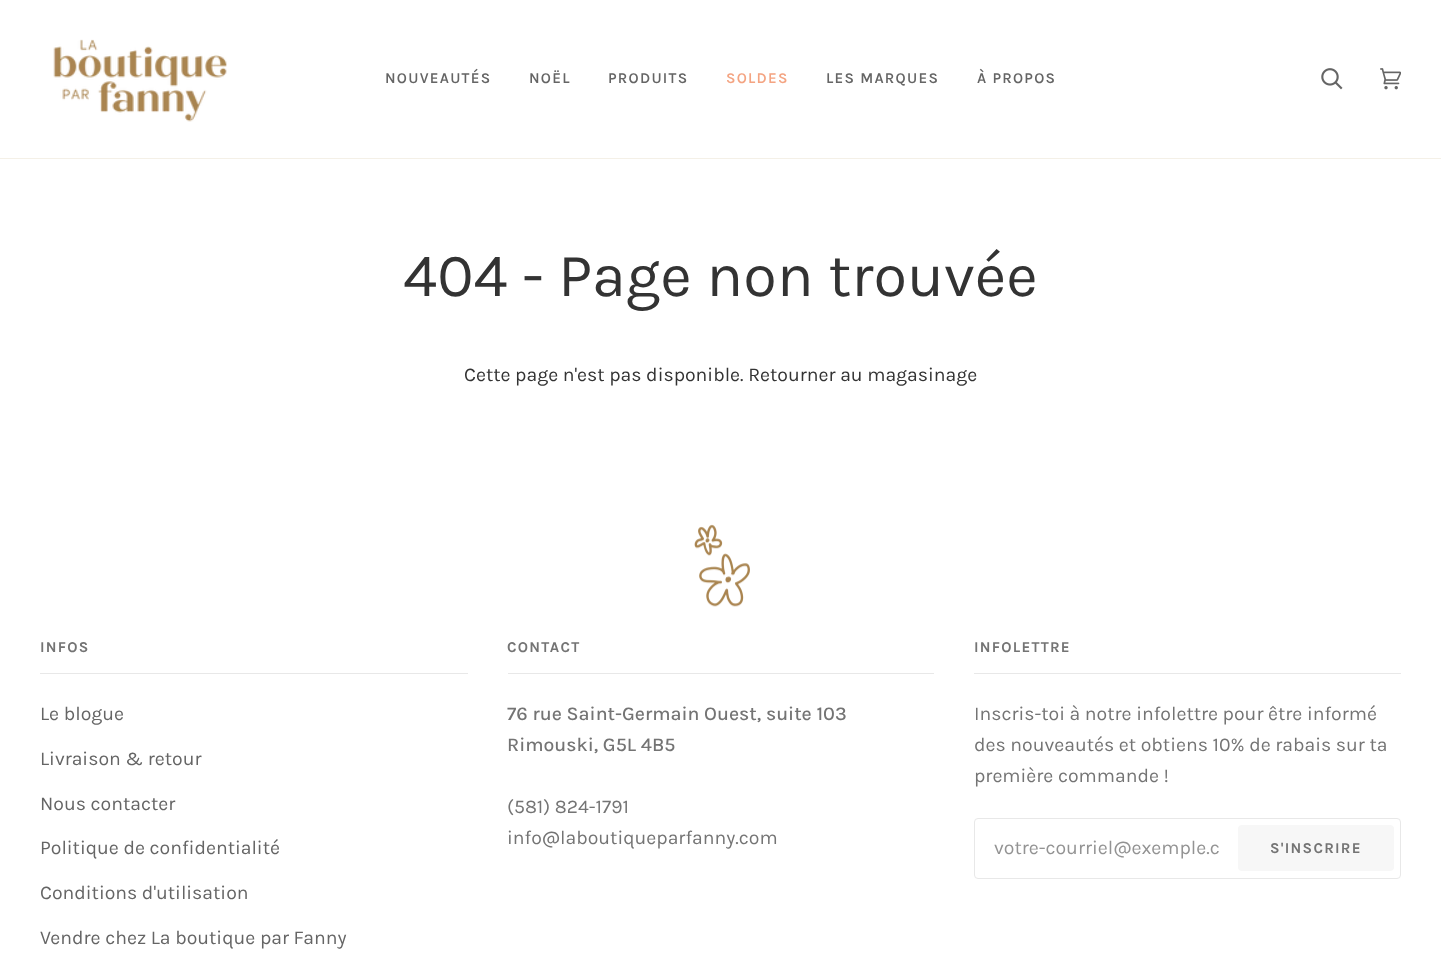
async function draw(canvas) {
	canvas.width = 1441;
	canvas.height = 971;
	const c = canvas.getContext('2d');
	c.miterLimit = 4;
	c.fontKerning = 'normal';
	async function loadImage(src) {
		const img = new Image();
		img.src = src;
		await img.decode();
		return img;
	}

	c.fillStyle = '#fff';
	c.fillRect(0, 0, 1441, 971);
	c.fillStyle = '#f4f0e7';
	c.fillRect(0, 158, 1441, 1);
	c.drawImage(await loadImage('img1.png'), 53, 39, 174, 83);
	c.letterSpacing = '1.25px';
	c.font = '600 15px Karla';
	c.fillStyle = '#656565';
	for (const [text, x, y] of [
		['NOUVEAUTÉS', 385, 83],
		['NOËL', 529, 83],
		['PRODUITS', 608, 83],
	]) {
		c.fillText(text, x, y);
	}
	c.fillStyle = '#f4a482';
	c.fillText('SOLDES', 726, 83);
	c.fillStyle = '#656565';
	c.fillText('LES MARQUES', 826, 83);
	c.fillText('À PROPOS', 977, 83);
	c.drawImage(await loadImage('img2.png'), 1321, 68, 22, 22);
	c.drawImage(await loadImage('img3.png'), 1380, 68, 21, 22);
	c.letterSpacing = '0px';
	c.font = '61.25px Karla';
	c.fillStyle = '#333';
	c.fillText('404 - Page non trouvée', 403, 296);
	c.font = '19.45px Karla';
	c.fillText('Cette page n\'est pas disponible. Retourner au magasinage', 464, 381);
	c.drawImage(await loadImage('img4.png'), 694, 524, 56, 83);
	c.fillStyle = '#e8e8e8';
	c.fillRect(40, 673, 428, 1);
	c.letterSpacing = '1.25px';
	c.font = 'bold 15px Karla';
	c.fillStyle = '#747474';
	c.fillText('INFOS', 40, 652);
	c.letterSpacing = '0px';
	c.font = '19.45px Karla';
	c.fillStyle = '#656565';
	for (const [text, x, y] of [
		['Le blogue', 40, 720],
		['Livraison & retour', 40, 765],
		['Nous contacter', 40, 810],
		['Politique de confidentialité', 40, 854],
		['Conditions d\'utilisation', 40, 899],
		['Vendre chez La boutique par Fanny', 40, 944],
	]) {
		c.fillText(text, x, y);
	}
	c.fillStyle = '#e8e8e8';
	c.fillRect(508, 673, 426, 1);
	c.letterSpacing = '1.25px';
	c.font = 'bold 15px Karla';
	c.fillStyle = '#747474';
	c.fillText('CONTACT', 507, 652);
	c.letterSpacing = '0px';
	c.font = '500 19.45px Karla';
	c.fillText('76 rue Saint-Germain Ouest, suite 103', 507, 720);
	c.fillText('Rimouski, G5L 4B5', 507, 751);
	c.font = '19.45px Karla';
	c.fillText('(581) 824-1791', 507, 813);
	c.fillText('info@laboutiqueparfanny.com', 507, 844);
	c.fillStyle = '#e8e8e8';
	c.fillRect(974, 673, 427, 1);
	c.letterSpacing = '1.25px';
	c.font = 'bold 15px Karla';
	c.fillStyle = '#747474';
	c.fillText('INFOLETTRE', 974, 652);
	c.letterSpacing = '0px';
	c.font = '19.45px Karla';
	for (const [text, x, y] of [
		['Inscris-toi à notre infolettre pour être informé', 974, 720],
		['des nouveautés et obtiens 10% de rabais sur ta', 974, 751],
		['première commande !', 974, 782],
	]) {
		c.fillText(text, x, y);
	}
	c.beginPath();
	c.roundRect(974.5, 818.5, 426, 60, 3.5);
	c.strokeStyle = '#e8e8e8';
	c.stroke();
	c.fillStyle = '#939393';
	c.fillText('votre-courriel@exemple.c', 994, 854);
	c.fillStyle = '#f7f7f7';
	c.beginPath();
	c.roundRect(1238, 825, 156, 46, 4);
	c.fill();
	c.letterSpacing = '1.25px';
	c.font = 'bold 15px Karla';
	c.fillStyle = '#747474';
	c.fillText('S\'INSCRIRE', 1270, 853);
}

draw(document.querySelector('canvas'));
